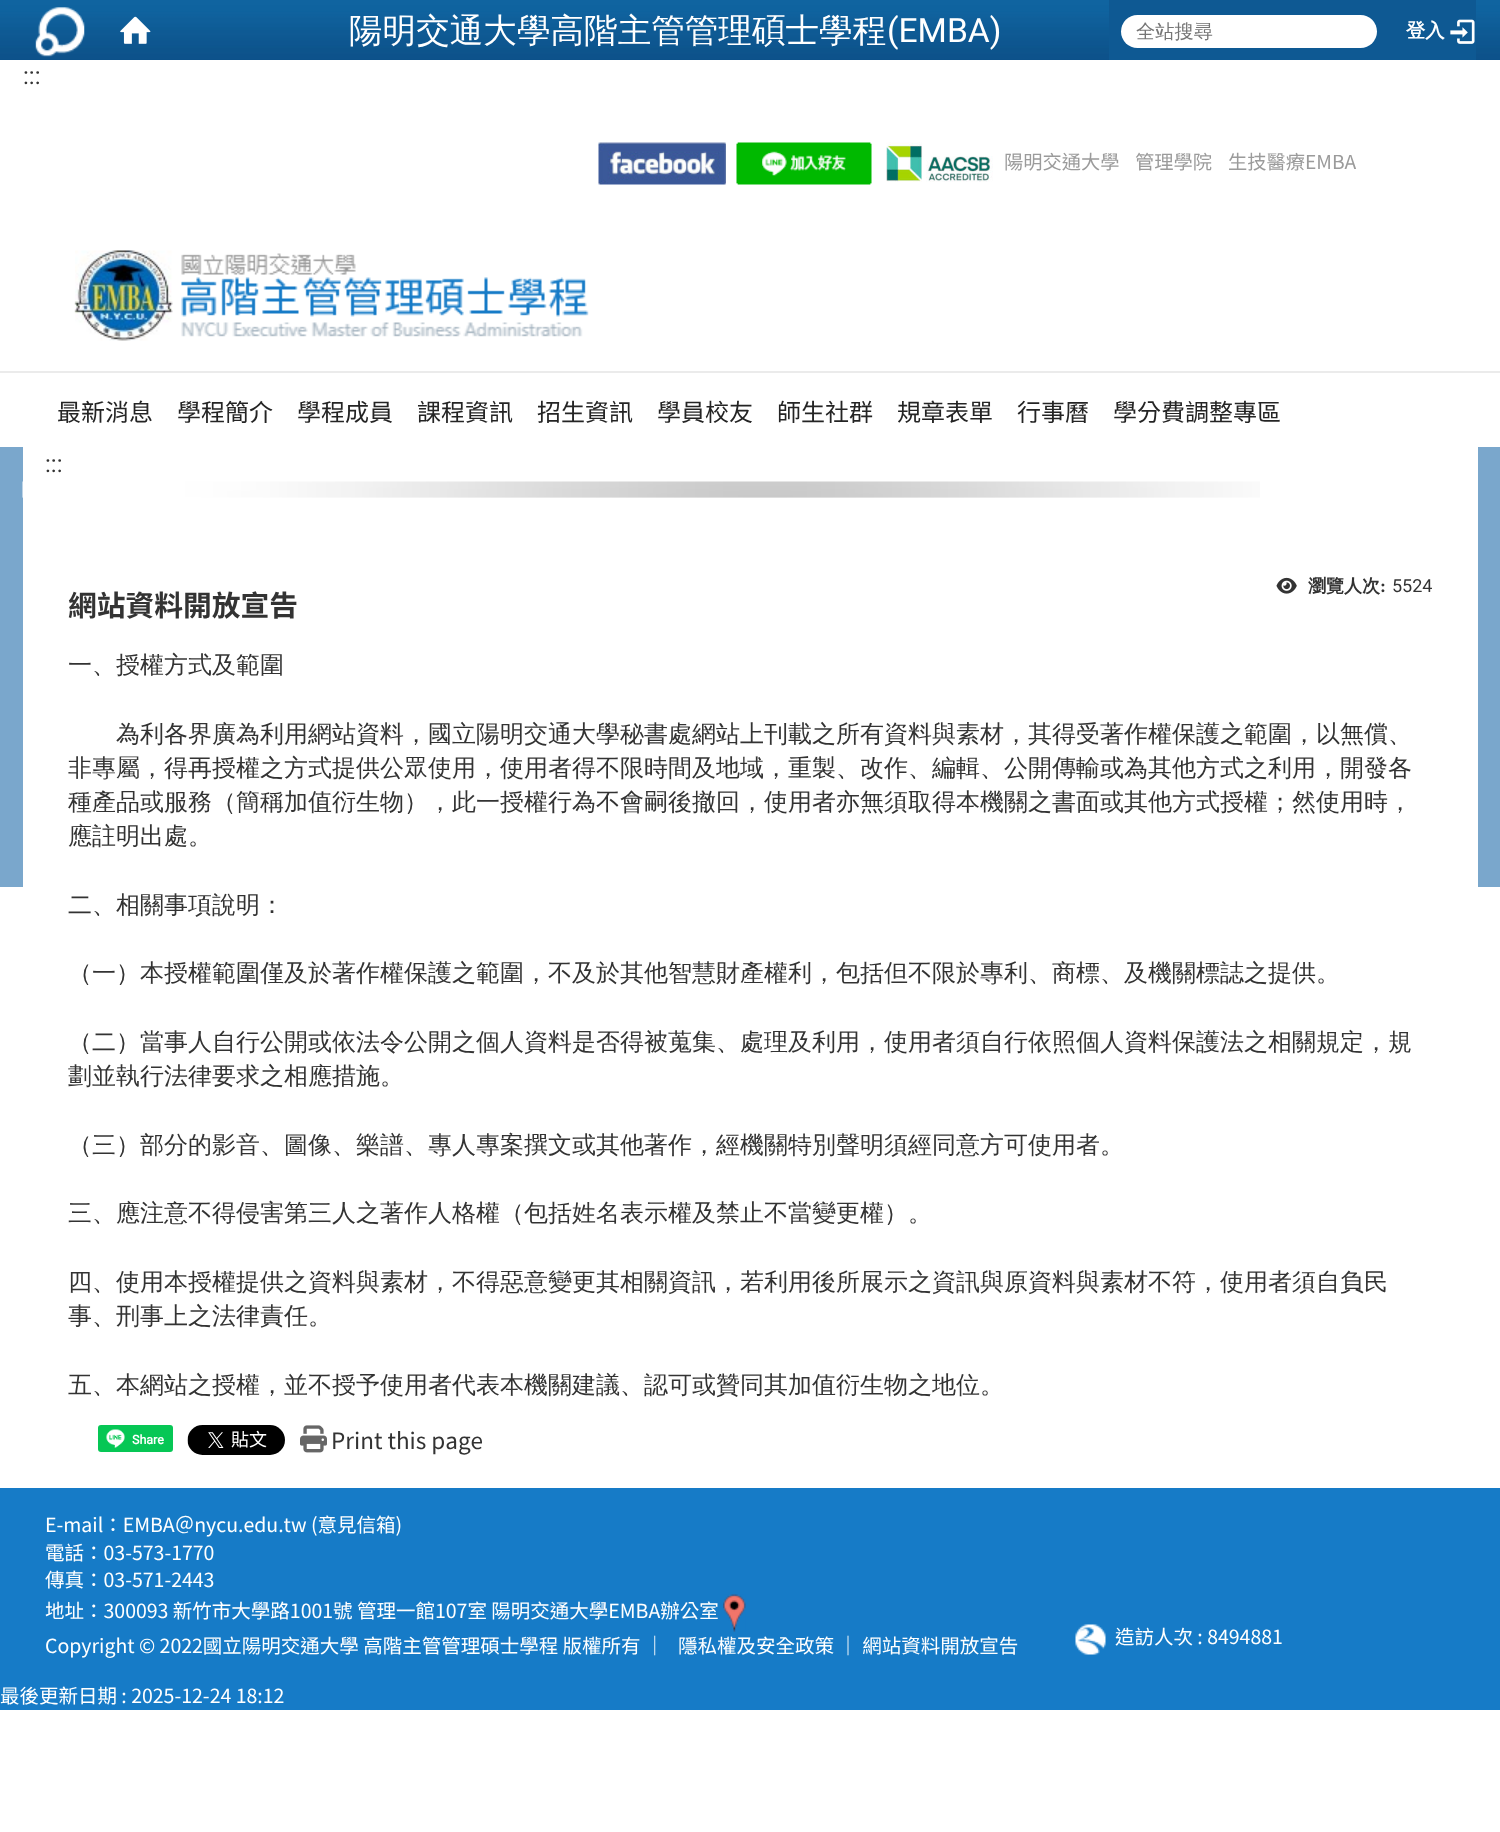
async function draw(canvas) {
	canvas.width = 1500;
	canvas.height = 1832;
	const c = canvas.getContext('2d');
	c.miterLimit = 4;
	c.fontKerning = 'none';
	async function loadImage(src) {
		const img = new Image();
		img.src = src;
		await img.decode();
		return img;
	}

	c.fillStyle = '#fff';
	c.fillRect(0, 0, 1500, 1832);
	c.drawImage(await loadImage('img1.png'), 0, 0, 1500, 60);
	c.drawImage(await loadImage('img2.png'), 35, 7, 50, 50);
	c.drawImage(await loadImage('img3.png'), 120, 16, 31, 28);
	c.font = '500 33.6px WenQuanYi Zen Hei';
	c.fillText('陽明交通大學高階主管管理碩士學程', 349, 42);
	c.font = '33.6px Roboto';
	c.fillText('(EMBA)', 887, 42);
	c.fillStyle = '#0e5993';
	c.fillRect(1109, 0, 367, 60);
	c.fillStyle = '#fff';
	c.beginPath();
	c.roundRect(1121, 15, 256, 33, 16.5);
	c.fill();
	c.font = '500 19.25px WenQuanYi Zen Hei';
	c.fillStyle = '#757575';
	c.fillText('全站搜尋', 1136, 38);
	c.font = 'bold 19.25px WenQuanYi Zen Hei';
	c.fillStyle = '#fff';
	c.fillText('登入', 1406, 37);
	c.drawImage(await loadImage('img4.png'), 1450, 19, 25, 25);
	c.font = '24px Roboto';
	c.fillStyle = '#333';
	c.fillText(':::', 23, 84);
	c.drawImage(await loadImage('img5.png'), 598, 142, 128, 43);
	c.drawImage(await loadImage('img6.png'), 736, 142, 136, 43);
	c.drawImage(await loadImage('img7.png'), 886, 142, 107, 40);
	c.font = '19.25px Noto Sans CJK TC';
	c.fillStyle = '#9b9b9b';
	for (const [text, x, y] of [
		['陽明交通大學', 1004, 169],
		['管理學院', 1135, 169],
		['生技醫療EMBA', 1228, 169],
	]) {
		c.fillText(text, x, y);
	}
	c.drawImage(await loadImage('img8.png'), 74, 250, 515, 91);
	c.fillStyle = '#ebebeb';
	c.fillRect(0, 371, 1500, 2);
	c.font = '24px Noto Sans CJK TC';
	c.fillStyle = '#242424';
	for (const [text, x, y] of [
		['最新消息', 57, 421],
		['學程簡介', 177, 421],
		['學程成員', 297, 421],
		['課程資訊', 417, 421],
		['招生資訊', 537, 421],
		['學員校友', 657, 421],
		['師生社群', 777, 421],
		['規章表單', 897, 421],
		['行事曆', 1017, 421],
		['學分費調整專區', 1113, 421],
	]) {
		c.fillText(text, x, y);
	}
	c.fillStyle = '#7aa7cc';
	c.fillRect(0, 447, 1500, 440);
	c.fillStyle = '#fff';
	c.fillRect(23, 447, 1455, 440);
	c.font = '24px Roboto';
	c.fillStyle = '#333';
	c.fillText(':::', 45, 472);
	c.drawImage(await loadImage('img9.png'), 22, 481, 1238, 17);
	c.drawImage(await loadImage('img10.png'), 1276, 577, 21, 17);
	c.font = 'bold 18px WenQuanYi Zen Hei';
	c.fillText('瀏覽人次', 1308, 592);
	c.font = 'bold 18px Liberation Serif';
	c.fillText(':', 1380, 592);
	c.font = '18px Roboto';
	c.fillText('5524', 1392, 592);
	c.font = 'bold 28.75px Noto Sans CJK TC';
	c.fillText('網站資料開放宣告', 68, 616);
	c.font = '500 24px WenQuanYi Zen Hei';
	for (const [text, x, y] of [
		['一、授權方式及範圍', 68, 673],
		['為利各界廣為利用網站資料，國立陽明交通大學秘書處網站上刊載之所有資料與素材，其得受著作權保護之範圍，以無償、', 116, 742],
		['非專屬，得再授權之方式提供公眾使用，使用者得不限時間及地域，重製、改作、編輯、公開傳輸或為其他方式之利用，開發各', 68, 776],
		['種產品或服務（簡稱加值衍生物），此一授權行為不會嗣後撤回，使用者亦無須取得本機關之書面或其他方式授權；然使用時，', 68, 810],
		['應註明出處。', 68, 844],
		['二、相關事項說明：', 68, 913],
		['（一）本授權範圍僅及於著作權保護之範圍，不及於其他智慧財產權利，包括但不限於專利、商標、及機關標誌之提供。', 68, 981],
		['（二）當事人自行公開或依法令公開之個人資料是否得被蒐集、處理及利用，使用者須自行依照個人資料保護法之相關規定，規', 68, 1050],
		['劃並執行法律要求之相應措施。', 68, 1084],
		['（三）部分的影音、圖像、樂譜、專人專案撰文或其他著作，經機關特別聲明須經同意方可使用者。', 68, 1153],
		['三、應注意不得侵害第三人之著作人格權（包括姓名表示權及禁止不當變更權）。', 68, 1221],
		['四、使用本授權提供之資料與素材，不得惡意變更其相關資訊，若利用後所展示之資訊與原資料與素材不符，使用者須自負民', 68, 1290],
		['事、刑事上之法律責任。', 68, 1324],
		['五、本網站之授權，並不授予使用者代表本機關建議、認可或贊同其加值衍生物之地位。', 68, 1393],
	]) {
		c.fillText(text, x, y);
	}
	c.fillStyle = '#06c755';
	c.beginPath();
	c.roundRect(98, 1425, 75, 27, 3);
	c.fill();
	c.drawImage(await loadImage('img11.png'), 106, 1429, 19, 19);
	c.font = 'bold 12.5px Roboto';
	c.fillStyle = '#fff';
	c.fillText('Share', 132, 1444);
	c.drawImage(await loadImage('img12.png'), 187, 1425, 98, 30);
	c.drawImage(await loadImage('img13.png'), 300, 1425, 27, 28);
	c.font = '22.5px Noto Sans CJK TC';
	c.fillStyle = '#333';
	c.fillText('Print this page', 331, 1449);
	c.fillStyle = '#167bc7';
	c.fillRect(0, 1488, 1500, 222);
	c.font = '19.5px Noto Sans CJK TC';
	c.fillStyle = '#fff';
	for (const [text, x, y] of [
		['E-mail：EMBA＠nycu.edu.tw (意見信箱)', 45, 1532],
		['電話：03-573-1770', 45, 1560],
		['傳真：03-571-2443', 45, 1587],
		['地址：300093 新竹市大學路1001號 管理一館107室 陽明交通大學EMBA辦公室', 45, 1618],
	]) {
		c.fillText(text, x, y);
	}
	c.drawImage(await loadImage('img14.png'), 723, 1594, 23, 38);
	c.fillText('Copyright © 2022國立陽明交通大學 高階主管管理碩士學程 版權所有 ｜', 45, 1653);
	c.fillText('隱私權及安全政策 ｜ 網站資料開放宣告', 678, 1653);
	c.drawImage(await loadImage('img15.png'), 1075, 1624, 31, 31);
	c.fillText('造訪人次 : 8494881', 1115, 1644);
	c.fillText('最後更新日期 : 2025-12-24 18:12', 0, 1703);
}

draw(document.querySelector('canvas'));
